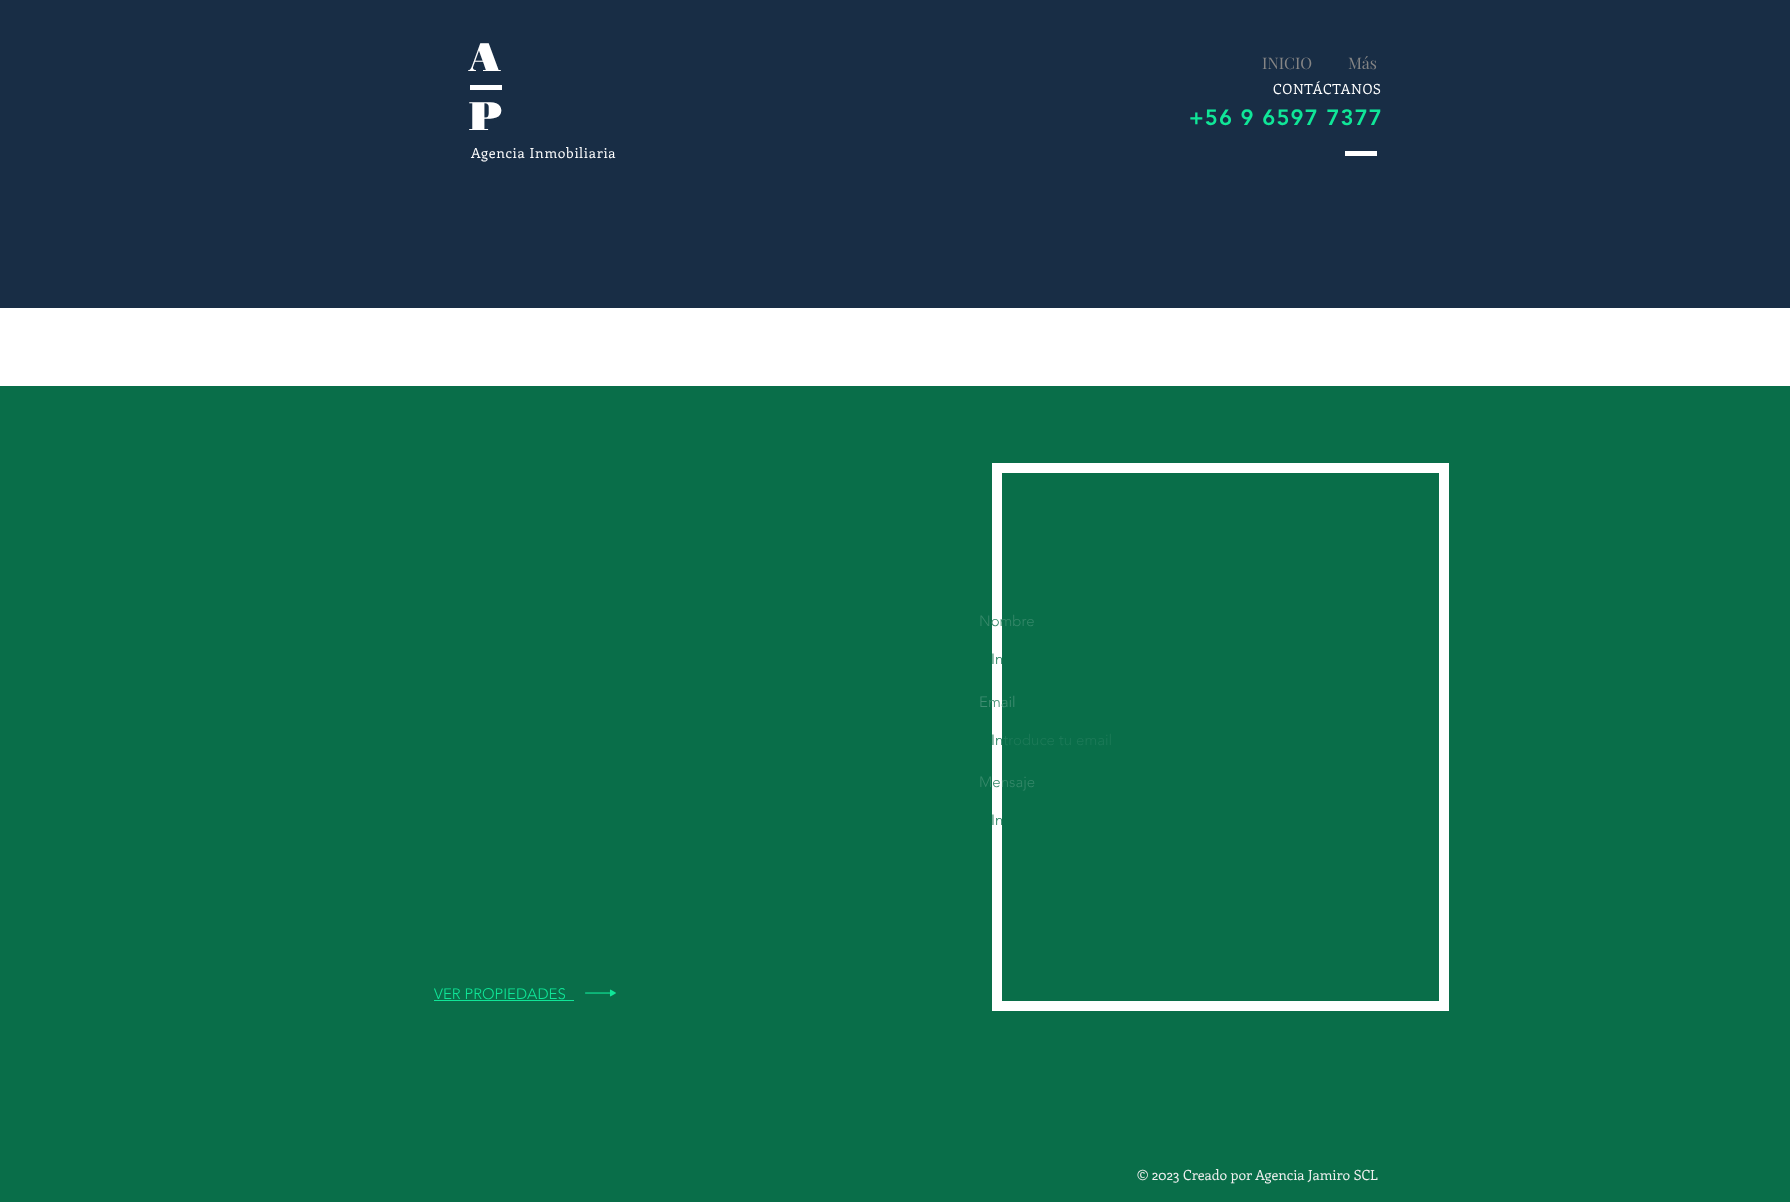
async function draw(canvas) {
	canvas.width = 1790;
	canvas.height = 1202;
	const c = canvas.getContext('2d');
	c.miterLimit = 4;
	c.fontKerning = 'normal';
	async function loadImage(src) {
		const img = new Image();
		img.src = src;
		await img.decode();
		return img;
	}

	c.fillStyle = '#182d45';
	c.fillRect(0, 0, 1790, 1202);
	c.font = '900 40px "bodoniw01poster"';
	c.fillStyle = '#fff';
	c.fillText('A', 468, 71);
	c.font = '16px Playfair Display';
	c.fillStyle = '#858585';
	c.fillText('INICIO', 1262, 69);
	c.fillText('Más', 1348, 69);
	c.fillStyle = '#fff';
	c.fillRect(470, 85, 32, 5);
	c.letterSpacing = '0.7px';
	c.font = '14px Enriqueta';
	c.fillText('CONTÁCTANOS', 1273, 94);
	c.letterSpacing = '0px';
	c.font = '900 40px "bodoniw01poster"';
	c.fillText('P', 469, 130);
	c.letterSpacing = '1.1px';
	c.font = '900 22px "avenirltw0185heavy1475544"';
	c.fillStyle = '#10e698';
	c.fillText('+56 9 6597 7377', 1189, 125);
	c.letterSpacing = '0.7px';
	c.font = '14px Enriqueta';
	c.fillStyle = '#fff';
	c.fillText('Agencia Inmobiliaria', 471, 158);
	for (const [x, y, w, h, color] of [
		[1345, 151, 32, 5, '#fff'],
		[0, 308, 1790, 78, '#fff'],
		[0, 386, 1790, 816, '#096e49'],
	]) {
		c.fillStyle = color;
		c.fillRect(x, y, w, h);
	}
	c.strokeStyle = '#fff';
	c.lineWidth = 10;
	c.strokeRect(997, 468, 447, 538);
	c.letterSpacing = '0px';
	c.font = '300 15px "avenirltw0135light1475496"';
	c.fillStyle = '#358869';
	c.fillText('Nombre', 979, 626);
	c.fillStyle = '#1d7a58';
	c.fillText('In', 991, 664);
	c.fillStyle = '#408e72';
	c.fillText('Email', 979, 707);
	c.fillStyle = '#1d7a58';
	c.fillText('Introduce tu email', 991, 745);
	c.fillStyle = '#358869';
	c.fillText('Mensaje', 979, 787);
	c.fillStyle = '#1d7a58';
	c.fillText('In', 991, 825);
	c.fillStyle = '#10e698';
	c.fillText('VER PROPIEDADES', 434, 999);
	c.fillRect(434, 1000, 140, 1);
	c.drawImage(await loadImage('img1.png'), 585, 989, 31, 8);
	c.font = '14px Enriqueta';
	c.fillStyle = '#f0f0f0';
	c.fillText('© 2023 Creado por Agencia Jamiro SCL', 1137, 1180);
}

draw(document.querySelector('canvas'));
